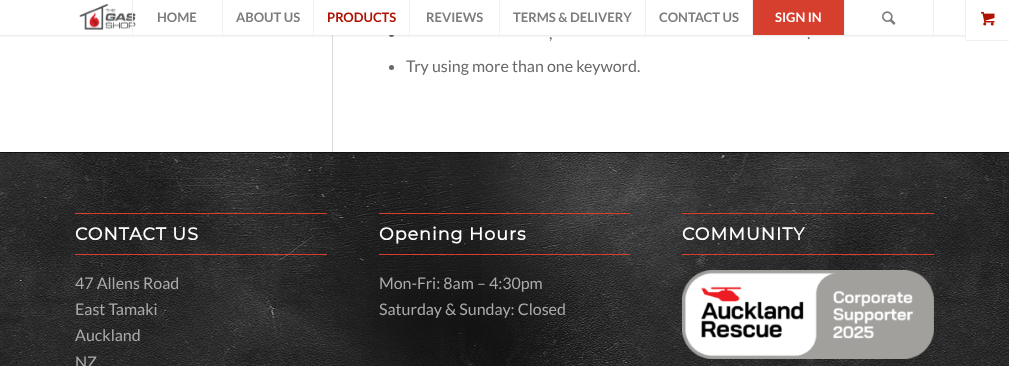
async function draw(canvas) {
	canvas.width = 1009;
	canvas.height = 366;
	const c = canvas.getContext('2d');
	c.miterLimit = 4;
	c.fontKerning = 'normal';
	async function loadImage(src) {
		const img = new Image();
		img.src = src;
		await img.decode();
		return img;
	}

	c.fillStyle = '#fff';
	c.fillRect(0, 0, 1009, 366);
	c.fillStyle = '#dbdbdb';
	c.fillRect(332, 35, 1, 117);
	c.fillStyle = '#696969';
	c.beginPath();
	c.arc(391.5, 34.5, 2.5, 0, 2 * Math.PI);
	c.fill();
	c.fillStyle = '#0000001a';
	c.filter = 'blur(1px)';
	c.beginPath();
	c.rect(-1, -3, 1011, 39);
	c.fill();
	c.filter = 'none';
	c.fillStyle = '#fff';
	c.fillRect(0, 0, 965, 35);
	c.drawImage(await loadImage('img1.png'), 79, 3, 57, 27);
	c.fillStyle = '#f0f0f0';
	c.fillRect(132, 0, 1, 35);
	c.font = 'bold 13px Lato';
	c.fillStyle = '#7d7d7d';
	c.fillText('HOME', 157, 22);
	c.fillStyle = '#f0f0f0';
	c.fillRect(222, 0, 1, 35);
	c.fillStyle = '#7d7d7d';
	c.fillText('ABOUT US', 236, 22);
	c.fillStyle = '#f0f0f0';
	c.fillRect(313, 0, 1, 35);
	c.fillStyle = '#b01302';
	c.fillText('PRODUCTS', 327, 22);
	c.fillStyle = '#f0f0f0';
	c.fillRect(409, 0, 1, 35);
	c.fillStyle = '#7d7d7d';
	c.fillText('REVIEWS', 426, 22);
	c.fillStyle = '#f0f0f0';
	c.fillRect(499, 0, 1, 35);
	c.fillStyle = '#7d7d7d';
	c.fillText('TERMS & DELIVERY', 513, 22);
	c.fillStyle = '#f0f0f0';
	c.fillRect(645, 0, 1, 35);
	c.fillStyle = '#7d7d7d';
	c.fillText('CONTACT US', 659, 22);
	c.fillStyle = '#d63e2d';
	c.fillRect(753, 0, 91, 35);
	c.fillStyle = '#f0f0f0';
	c.fillRect(752, 0, 1, 35);
	c.fillStyle = '#fff';
	c.fillText('SIGN IN', 775, 22);
	c.fillStyle = '#f0f0f0';
	c.fillRect(933, 0, 1, 35);
	c.fillRect(844, 0, 1, 35);
	c.drawImage(await loadImage('img2.png'), 882, 11, 14, 14);
	c.beginPath();
	c.roundRect(965.5, -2.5, 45, 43, 1.5);
	c.strokeStyle = '#f0f0f0';
	c.stroke();
	c.fillStyle = '#fff';
	c.fillRect(966, 0, 43, 40);
	c.drawImage(await loadImage('img3.png'), 981, 12, 14, 14);
	c.font = '16px Lato';
	c.fillStyle = '#696969';
	c.fillText(',', 549, 39);
	c.fillText('.', 807, 39);
	c.beginPath();
	c.arc(391.5, 67.5, 2.5, 0, 2 * Math.PI);
	c.fill();
	c.fillText('Try using more than one keyword.', 406, 72);
	c.fillStyle = '#111';
	c.fillRect(0, 152, 1009, 214);
	c.drawImage(await loadImage('img4.png'), 0, 153, 1009, 213);
	c.fillStyle = '#d63e2d';
	c.fillRect(75, 213, 252, 1);
	c.fillRect(75, 254, 252, 1);
	c.letterSpacing = '1px';
	c.font = 'bold 17.5px Montserrat';
	c.fillStyle = '#fff';
	c.fillText('CONTACT US', 75, 240);
	c.letterSpacing = '0px';
	c.font = '16px Lato';
	c.fillStyle = '#aaa';
	for (const [text, x, y] of [
		['47 Allens Road', 75, 289],
		['East Tamaki', 75, 315],
		['Auckland', 75, 341],
		['NZ', 75, 368],
	]) {
		c.fillText(text, x, y);
	}
	c.fillStyle = '#d63e2d';
	c.fillRect(379, 213, 251, 1);
	c.fillRect(379, 254, 251, 1);
	c.letterSpacing = '1px';
	c.font = 'bold 17.5px Montserrat';
	c.fillStyle = '#fff';
	c.fillText('Opening Hours', 379, 240);
	c.letterSpacing = '0px';
	c.font = '16px Lato';
	c.fillStyle = '#aaa';
	c.fillText('Mon-Fri: 8am – 4:30pm', 379, 289);
	c.fillText('Saturday & Sunday: Closed', 379, 315);
	c.fillStyle = '#d63e2d';
	c.fillRect(682, 213, 252, 1);
	c.fillRect(682, 254, 252, 1);
	c.letterSpacing = '1px';
	c.font = 'bold 17.5px Montserrat';
	c.fillStyle = '#fff';
	c.fillText('COMMUNITY', 682, 240);
	c.drawImage(await loadImage('img5.png'), 682, 270, 252, 89);
}

draw(document.querySelector('canvas'));
